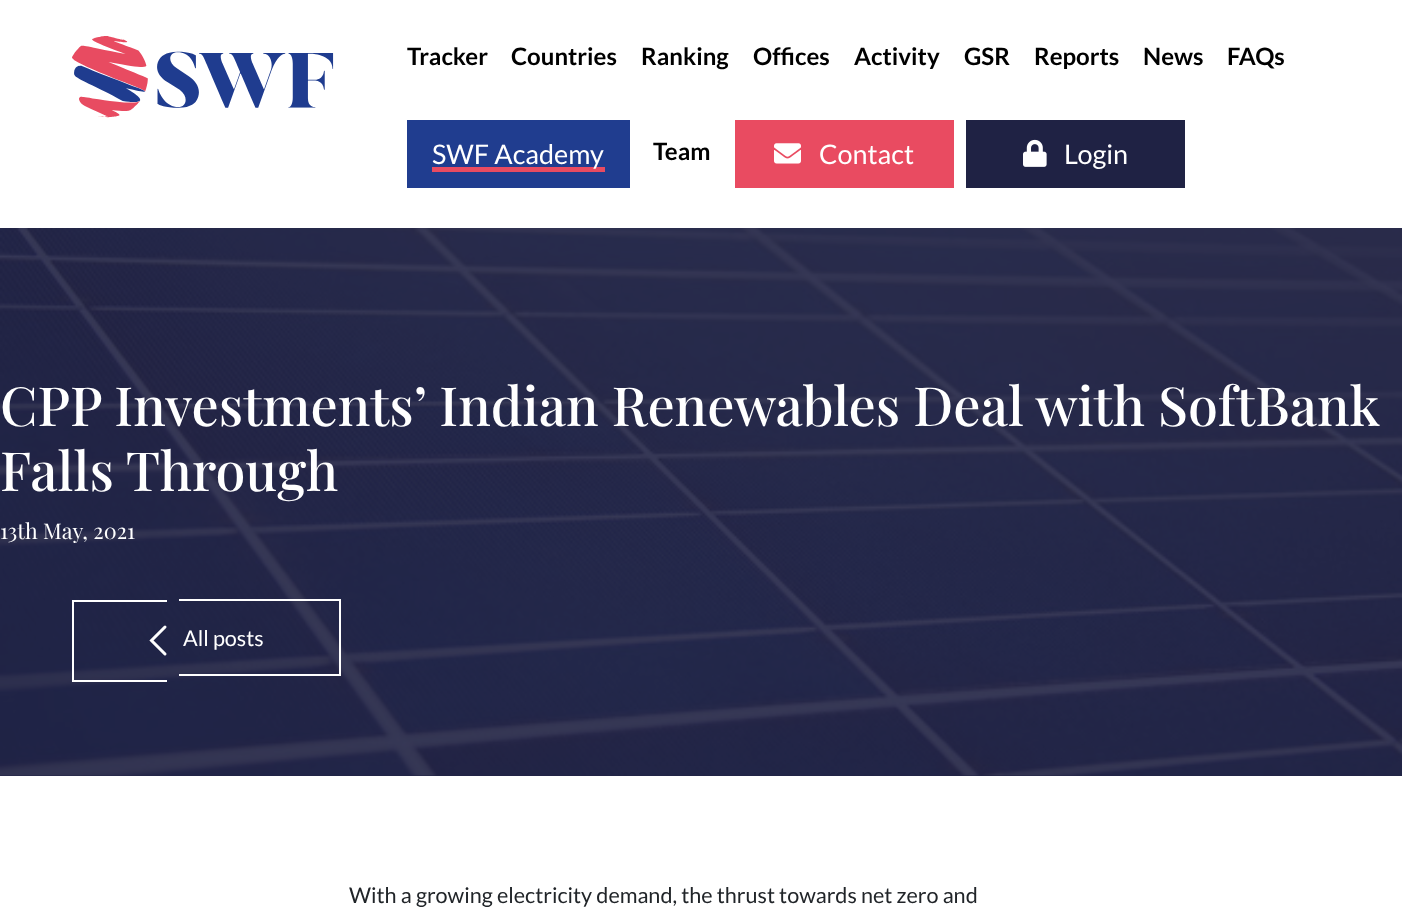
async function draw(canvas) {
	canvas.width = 1402;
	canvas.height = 923;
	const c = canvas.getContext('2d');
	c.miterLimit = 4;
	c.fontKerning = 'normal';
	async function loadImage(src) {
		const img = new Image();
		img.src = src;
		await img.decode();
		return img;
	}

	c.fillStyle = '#fff';
	c.fillRect(0, 0, 1402, 923);
	c.drawImage(await loadImage('img1.png'), 72, 36, 262, 82);
	c.font = 'bold 24px Lato';
	c.fillStyle = '#000';
	for (const [text, x, y] of [
		['Tracker', 407, 65],
		['Countries', 511, 65],
		['Ranking', 641, 65],
		['Offices', 753, 65],
		['Activity', 854, 65],
		['GSR', 964, 65],
		['Reports', 1034, 65],
		['News', 1143, 65],
		['FAQs', 1227, 65],
	]) {
		c.fillText(text, x, y);
	}
	c.fillStyle = '#203d8f';
	c.fillRect(407, 120, 223, 68);
	c.fillStyle = '#e94b61';
	c.fillRect(432, 167, 173, 5);
	c.font = '27px Lato';
	c.fillStyle = '#fff';
	c.fillText('SWF Academy', 432, 164);
	c.font = 'bold 24px Lato';
	c.fillStyle = '#000';
	c.fillText('Team', 653, 160);
	c.fillStyle = '#e94b61';
	c.fillRect(735, 120, 219, 68);
	c.drawImage(await loadImage('img2.png'), 774, 143, 27, 21);
	c.font = '27px Lato';
	c.fillStyle = '#fff';
	c.fillText('Contact', 819, 164);
	c.fillStyle = '#1f2244';
	c.fillRect(966, 120, 219, 68);
	c.drawImage(await loadImage('img3.png'), 1023, 139, 24, 28);
	c.fillStyle = '#fff';
	c.fillText('Login', 1064, 164);
	c.fillStyle = '#202244';
	c.fillRect(0, 775, 1402, 1);
	c.drawImage(await loadImage('img4.png'), 0, 228, 1402, 548);
	c.font = '500 54px Playfair Display';
	c.fillStyle = '#fff';
	c.fillText('CPP Investments’ Indian Renewables Deal with SoftBank', 0, 426);
	c.fillText('Falls Through', 0, 491);
	c.font = '21.6px Playfair Display';
	c.fillText('13th May, 2021', 0, 539);
	c.font = '21.6px Lato';
	c.fillText('All posts', 183, 646);
	for (const [x, y, w, h, color] of [
		[72, 600, 95, 2, '#fff'],
		[72, 680, 95, 2, '#fff'],
		[72, 600, 2, 81, '#fff'],
		[179, 599, 162, 2, '#fff'],
		[339, 599, 2, 76, '#fff'],
		[179, 674, 162, 2, '#fff'],
	]) {
		c.fillStyle = color;
		c.fillRect(x, y, w, h);
	}
	c.beginPath();
	c.moveTo(165, 627);
	c.lineTo(151.5, 640.5);
	c.lineTo(165, 654);
	c.strokeStyle = '#fff';
	c.lineWidth = 3;
	c.lineCap = 'round';
	c.stroke();
	c.fillStyle = '#212529';
	c.fillText('With a growing electricity demand, the thrust towards net zero and', 349, 903);
}

draw(document.querySelector('canvas'));
